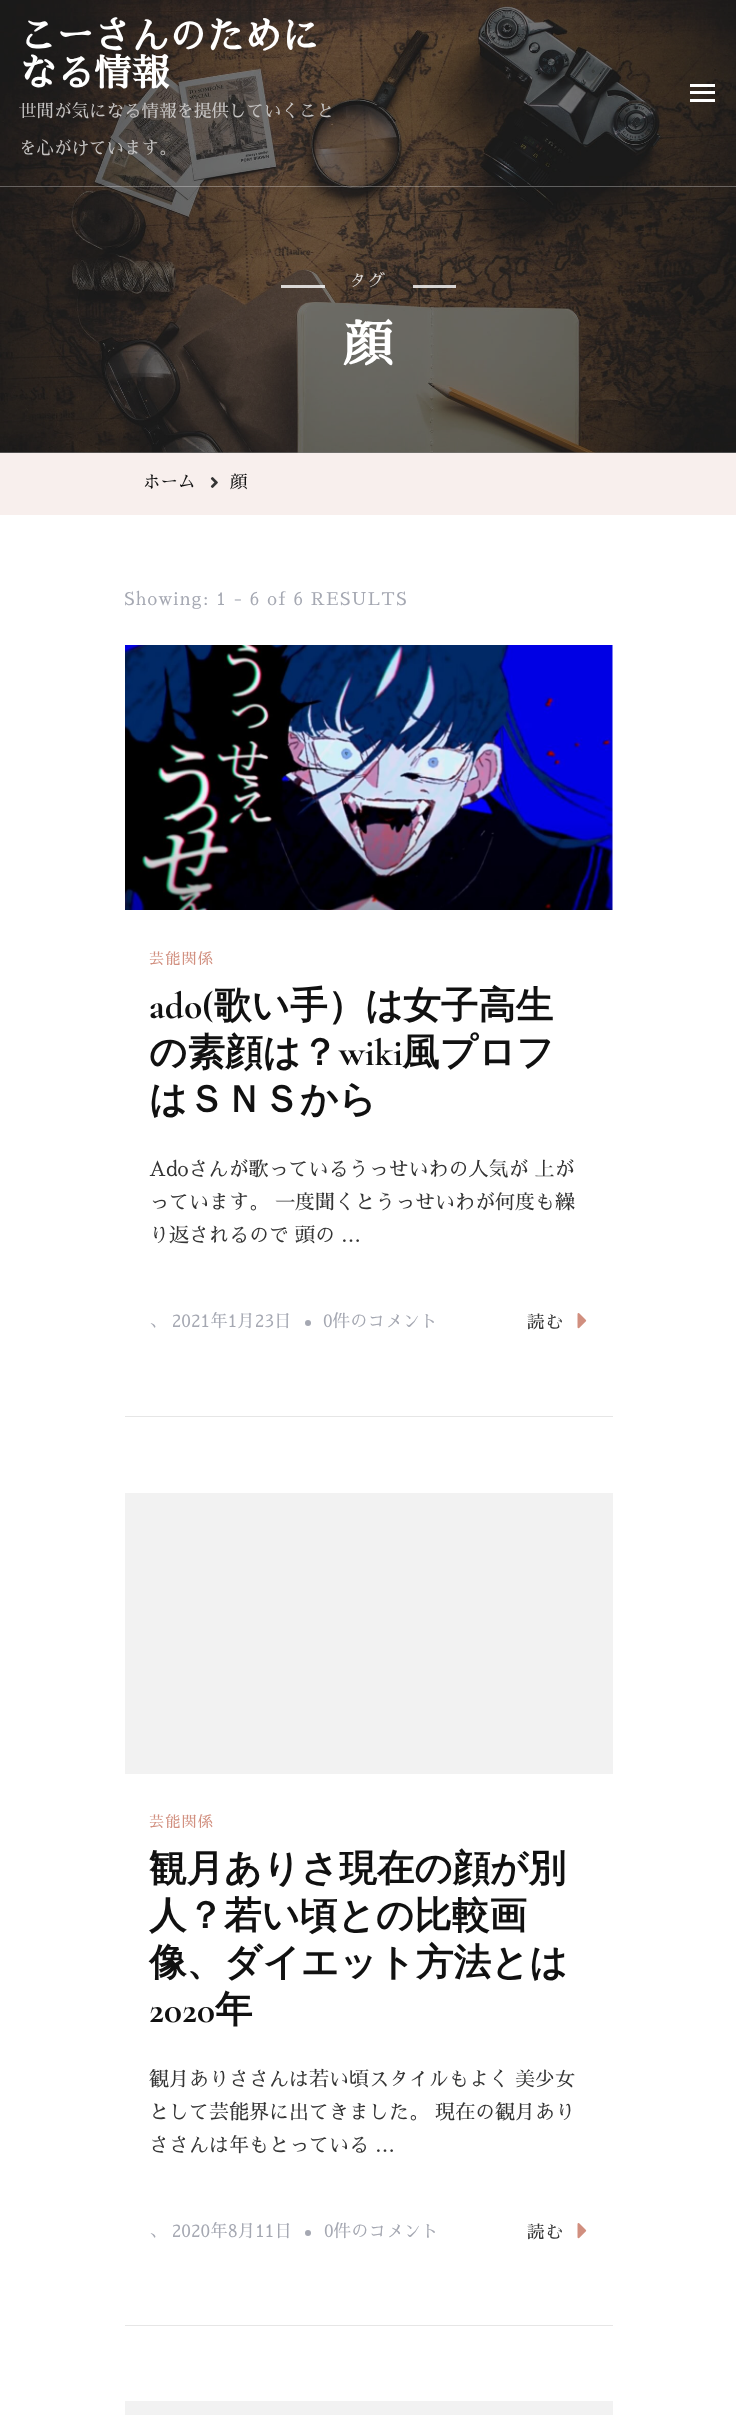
async function draw(canvas) {
	canvas.width = 736;
	canvas.height = 2415;
	const c = canvas.getContext('2d');
	c.miterLimit = 4;
	c.fontKerning = 'normal';
	async function loadImage(src) {
		const img = new Image();
		img.src = src;
		await img.decode();
		return img;
	}

	c.fillStyle = '#fff';
	c.fillRect(0, 0, 736, 2415);
	c.fillStyle = '#808080';
	c.fillRect(0, 452, 736, 1);
	c.drawImage(await loadImage('img1.png'), 0, 0, 736, 453);
	c.fillStyle = '#ffffff4d';
	c.fillRect(0, 186, 736, 1);
	c.font = 'bold 37.5px Sawarabi Mincho';
	c.fillStyle = '#fff';
	c.fillText('こーさんのために', 19, 49);
	c.fillText('なる情報', 19, 86);
	c.font = '17.5px Sawarabi Mincho';
	c.fillStyle = '#c6c4c3';
	c.fillText('世間が気になる情報を提供していくこと', 19, 117);
	c.fillText('を心がけています。', 19, 154);
	for (const [x, y, w, h, color] of [
		[690, 84, 25, 3, '#fff'],
		[690, 91, 25, 3, '#fff'],
		[690, 99, 25, 3, '#fff'],
		[281, 285, 44, 3, '#ffffffcc'],
	]) {
		c.fillStyle = color;
		c.fillRect(x, y, w, h);
	}
	c.letterSpacing = '1.25px';
	c.fillStyle = '#dad7d5';
	c.fillText('タグ', 349, 287);
	c.fillStyle = '#ffffffcc';
	c.fillRect(413, 285, 43, 3);
	c.letterSpacing = '0px';
	c.font = 'bold 50px Sawarabi Mincho';
	c.fillStyle = '#fff';
	c.fillText('顔', 343, 362);
	c.fillStyle = '#f8efed';
	c.fillRect(0, 453, 736, 62);
	c.font = '17.5px Sawarabi Mincho';
	c.fillStyle = '#111';
	c.fillText('ホーム', 143, 488);
	c.drawImage(await loadImage('img2.png'), 210, 477, 8, 11);
	c.fillText('顔', 230, 488);
	c.letterSpacing = '1.25px';
	c.fillStyle = '#a5a8b2';
	c.fillText('Showing: 1 - 6 of 6 RESULTS', 124, 605);
	c.fillStyle = '#e6e6e6';
	c.fillRect(125, 1416, 488, 1);
	c.drawImage(await loadImage('img3.png'), 125, 645, 488, 265);
	c.font = '15px Sawarabi Mincho';
	c.fillStyle = '#d18f7f';
	c.fillText('芸能関係', 149, 964);
	c.letterSpacing = '0px';
	c.font = 'bold 37.5px Cormorant Garamond';
	c.fillStyle = '#111';
	c.fillText('ado(', 149, 1018);
	c.font = 'bold 37.5px WenQuanYi Zen Hei';
	c.fillText('歌い手）は女子高生', 214, 1018);
	c.fillText('の素顔は？', 149, 1065);
	c.font = 'bold 37.5px Cormorant Garamond';
	c.fillText('wiki', 339, 1065);
	c.font = 'bold 37.5px WenQuanYi Zen Hei';
	c.fillText('風プロフ', 402, 1065);
	c.fillText('はＳＮＳから', 149, 1112);
	c.font = '20px Sawarabi Mincho';
	c.fillStyle = '#343434';
	for (const [text, x, y] of [
		['Adoさんが歌っているうっせいわの人気が 上が', 149, 1176],
		['っています。 一度聞くとうっせいわが何度も繰', 149, 1209],
		['り返されるので 頭の …', 149, 1242],
	]) {
		c.fillText(text, x, y);
	}
	c.font = '17.5px Sawarabi Mincho';
	c.fillStyle = '#a5a8b2';
	c.fillText('、 2021年1月23日', 149, 1327);
	c.beginPath();
	c.arc(308, 1323, 3, 0, 2 * Math.PI);
	c.fill();
	c.fillText('0件のコメント', 323, 1327);
	c.letterSpacing = '1.25px';
	c.fillStyle = '#343434';
	c.fillText('読む', 527, 1328);
	c.drawImage(await loadImage('img4.png'), 577, 1313, 10, 16);
	c.fillStyle = '#e6e6e6';
	c.fillRect(125, 2325, 488, 1);
	c.fillStyle = '#f2f2f2';
	c.fillRect(125, 1493, 488, 281);
	c.font = '15px Sawarabi Mincho';
	c.fillStyle = '#d18f7f';
	c.fillText('芸能関係', 149, 1827);
	c.letterSpacing = '0px';
	c.font = 'bold 37.5px WenQuanYi Zen Hei';
	c.fillStyle = '#111';
	for (const [text, x, y] of [
		['観月ありさ現在の顔が別', 149, 1881],
		['人？若い頃との比較画', 149, 1928],
		['像、ダイエット方法とは', 149, 1975],
	]) {
		c.fillText(text, x, y);
	}
	c.font = 'bold 37.5px Cormorant Garamond';
	c.fillText('2020', 149, 2022);
	c.font = 'bold 37.5px WenQuanYi Zen Hei';
	c.fillText('年', 215, 2022);
	c.font = '20px Sawarabi Mincho';
	c.fillStyle = '#343434';
	for (const [text, x, y] of [
		['観月ありささんは若い頃スタイルもよく 美少女', 149, 2086],
		['として芸能界に出てきました。 現在の観月あり', 149, 2119],
		['ささんは年もとっている …', 149, 2152],
	]) {
		c.fillText(text, x, y);
	}
	c.font = '17.5px Sawarabi Mincho';
	c.fillStyle = '#a5a8b2';
	c.fillText('、 2020年8月11日', 149, 2237);
	c.beginPath();
	c.arc(308, 2233, 3, 0, 2 * Math.PI);
	c.fill();
	c.fillText('0件のコメント', 324, 2237);
	c.letterSpacing = '1.25px';
	c.fillStyle = '#343434';
	c.fillText('読む', 527, 2238);
	c.drawImage(await loadImage('img4.png'), 577, 2223, 10, 16);
	c.fillStyle = '#f2f2f2';
	c.fillRect(125, 2401, 488, 14);
}

draw(document.querySelector('canvas'));
